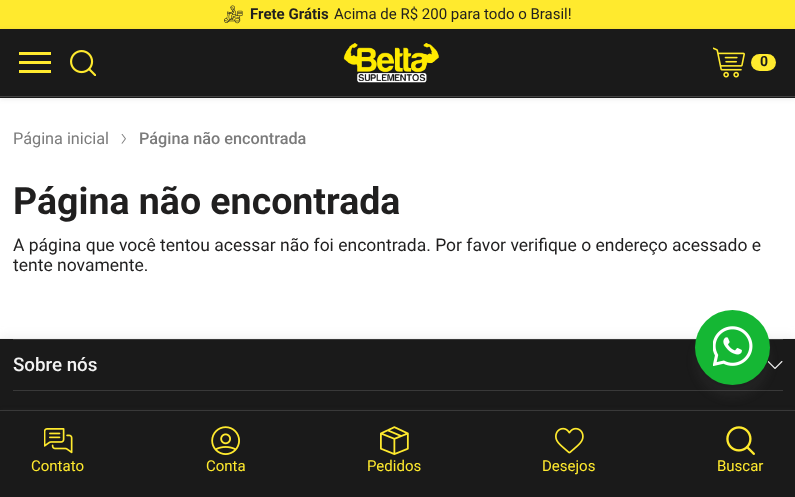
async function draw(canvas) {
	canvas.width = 795;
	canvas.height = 497;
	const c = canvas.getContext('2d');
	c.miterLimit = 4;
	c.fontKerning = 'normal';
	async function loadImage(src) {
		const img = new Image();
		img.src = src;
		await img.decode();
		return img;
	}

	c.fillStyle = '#fff';
	c.fillRect(0, 0, 795, 497);
	c.fillStyle = '#ffea2e';
	c.fillRect(0, 0, 795, 29);
	c.drawImage(await loadImage('img1.png'), 224, 5, 19, 19);
	c.font = 'bold 15px Roboto';
	c.fillStyle = '#201f1f';
	c.fillText('Frete Grátis', 250, 19);
	c.font = '15px Roboto';
	c.fillText('Acima de R$ 200 para todo o Brasil!', 334, 19);
	c.fillStyle = '#52525221';
	c.filter = 'blur(2.5px)';
	c.beginPath();
	c.rect(0, 30, 795, 69);
	c.fill();
	c.filter = 'none';
	for (const [x, y, w, h, color] of [
		[0, 29, 795, 69, '#1a1a1a'],
		[0, 96, 795, 1, '#424242'],
		[19, 70, 32, 3, '#ffea2e'],
		[19, 61, 32, 3, '#ffea2e'],
		[19, 52, 32, 3, '#ffea2e'],
	]) {
		c.fillStyle = color;
		c.fillRect(x, y, w, h);
	}
	c.drawImage(await loadImage('img2.png'), 70, 50, 26, 26);
	c.drawImage(await loadImage('img3.png'), 343, 43, 96, 40);
	c.drawImage(await loadImage('img4.png'), 713, 47, 32, 31);
	c.beginPath();
	c.roundRect(751, 54, 25, 17, 8.5);
	c.fill();
	c.font = 'bold 14px Roboto';
	c.fillStyle = '#1a1a1a';
	c.fillText('0', 760, 66);
	c.font = '16.25px Roboto';
	c.fillStyle = '#7b7b7b';
	c.fillText('Página inicial', 13, 144);
	c.drawImage(await loadImage('img5.png'), 121, 134, 5, 10);
	c.font = '500 16.25px Roboto';
	c.fillText('Página não encontrada', 139, 144);
	c.font = 'bold 37.5px Roboto';
	c.fillStyle = '#201f1f';
	c.fillText('Página não encontrada', 13, 214);
	c.font = '17.5px Roboto';
	c.fillText('A página que você tentou acessar não foi encontrada. Por favor verifique o endereço acessado e', 13, 251);
	c.fillText('tente novamente.', 13, 271);
	c.fillStyle = '#c4c4c42e';
	c.filter = 'blur(4px)';
	c.beginPath();
	c.rect(0, 335, 795, 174);
	c.fill();
	c.filter = 'none';
	for (const [x, y, w, h, color] of [
		[0, 338, 795, 1, '#efefef'],
		[0, 339, 795, 71, '#1a1a1a'],
		[13, 339, 770, 1, '#393939'],
	]) {
		c.fillStyle = color;
		c.fillRect(x, y, w, h);
	}
	c.font = '500 18.75px Roboto';
	c.fillStyle = '#f3f3f3';
	c.fillText('Sobre nós', 13, 371);
	c.drawImage(await loadImage('img6.png'), 768, 361, 15, 8);
	c.fillStyle = '#393939';
	c.fillRect(13, 390, 770, 1);
	c.fillStyle = '#6767671a';
	c.filter = 'blur(5px)';
	c.beginPath();
	c.roundRect(695, 323, 75, 75, 37.5);
	c.fill();
	c.filter = 'none';
	c.fillStyle = '#0000000a';
	c.filter = 'blur(0.5px)';
	c.beginPath();
	c.roundRect(695, 313, 75, 75, 37.5);
	c.fill();
	c.filter = 'none';
	c.fillStyle = '#15b734';
	c.beginPath();
	c.arc(732.5, 347.5, 37.5, 0, 2 * Math.PI);
	c.fill();
	c.drawImage(await loadImage('img7.png'), 713, 326, 40, 40);
	c.fillStyle = '#52525214';
	c.filter = 'blur(2.5px)';
	c.beginPath();
	c.rect(0, 410, 795, 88);
	c.fill();
	c.filter = 'none';
	c.fillStyle = '#1a1a1a';
	c.fillRect(0, 411, 795, 86);
	c.fillStyle = '#393939';
	c.fillRect(0, 410, 795, 1);
	c.drawImage(await loadImage('img8.png'), 44, 428, 29, 26);
	c.font = '15px Roboto';
	c.fillStyle = '#ffea2e';
	c.fillText('Contato', 31, 471);
	c.drawImage(await loadImage('img9.png'), 211, 426, 29, 29);
	c.fillText('Conta', 206, 471);
	c.drawImage(await loadImage('img10.png'), 380, 426, 29, 29);
	c.fillText('Pedidos', 367, 471);
	c.drawImage(await loadImage('img11.png'), 555, 427, 29, 27);
	c.fillText('Desejos', 542, 471);
	c.drawImage(await loadImage('img12.png'), 726, 426, 29, 29);
	c.fillText('Buscar', 717, 471);
}

draw(document.querySelector('canvas'));
